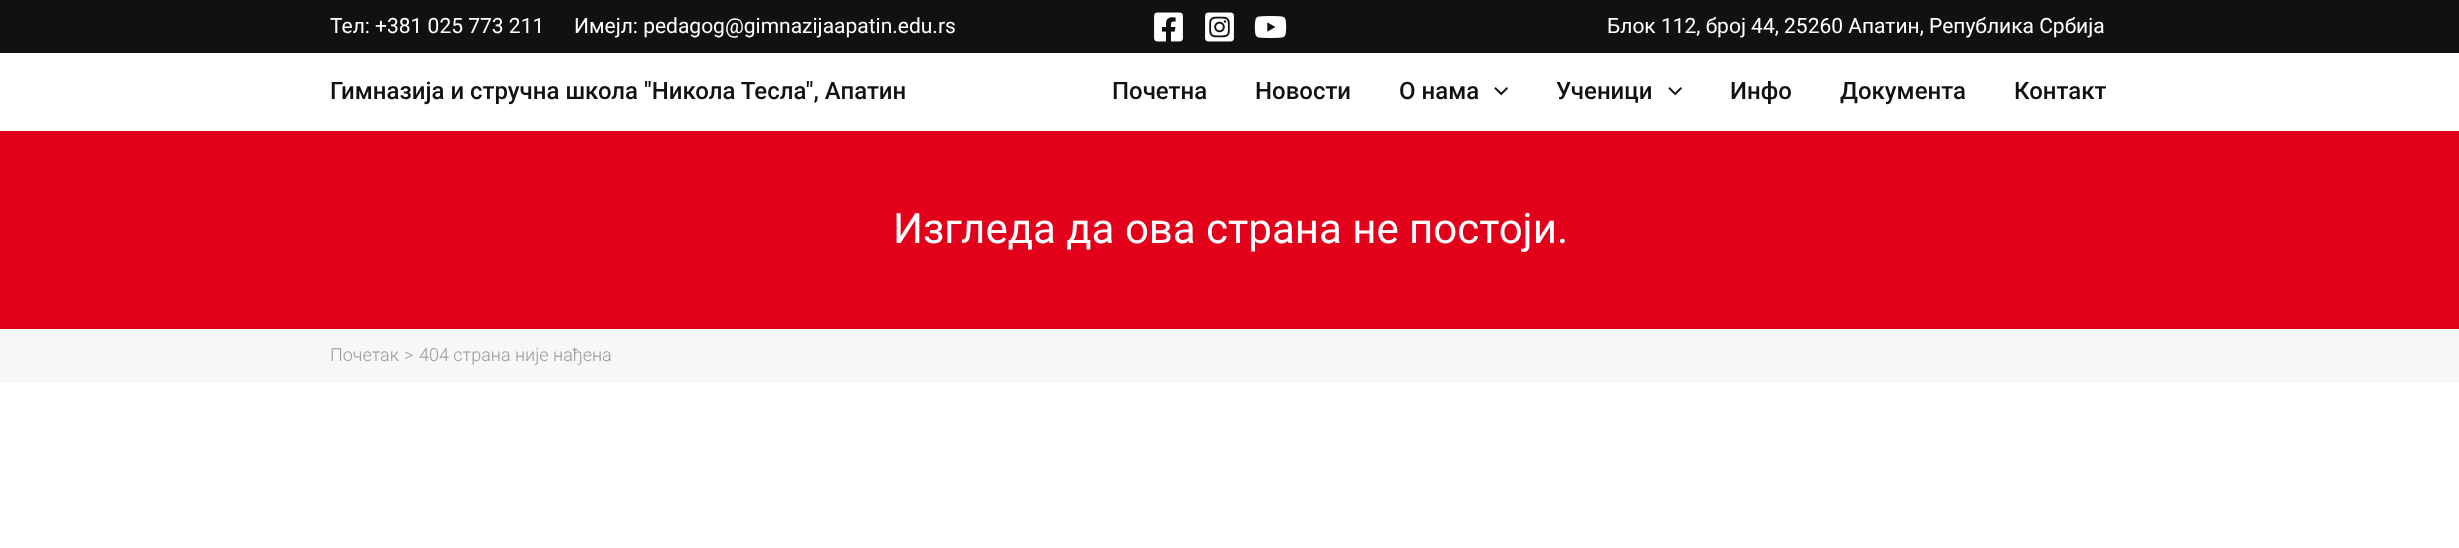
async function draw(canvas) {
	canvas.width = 2459;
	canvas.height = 548;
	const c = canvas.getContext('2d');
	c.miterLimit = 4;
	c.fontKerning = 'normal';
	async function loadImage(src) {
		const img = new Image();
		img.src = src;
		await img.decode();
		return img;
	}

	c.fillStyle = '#fff';
	c.fillRect(0, 0, 2459, 548);
	c.fillStyle = '#111';
	c.fillRect(0, 0, 2459, 53);
	c.font = '21px Roboto';
	c.fillStyle = '#fff';
	c.fillText('Тел: +381 025 773 211', 330, 33);
	c.fillText('Имејл: pedagog@gimnazijaapatin.edu.rs', 574, 33);
	c.drawImage(await loadImage('img1.png'), 1154, 12, 29, 30);
	c.drawImage(await loadImage('img2.png'), 1205, 12, 29, 30);
	c.drawImage(await loadImage('img3.png'), 1254, 16, 33, 22);
	c.fillText('Блок 112, број 44, 25260 Апатин, Република Србија', 1607, 33);
	c.font = '500 24px Roboto';
	c.fillStyle = '#111';
	for (const [text, x, y] of [
		['Гимназија и стручна школа "Никола Тесла", Апатин', 330, 99],
		['Почетна', 1112, 99],
		['Новости', 1255, 99],
		['О нама', 1399, 99],
	]) {
		c.fillText(text, x, y);
	}
	c.drawImage(await loadImage('img4.png'), 1494, 87, 14, 9);
	c.fillText('Ученици', 1556, 99);
	c.drawImage(await loadImage('img4.png'), 1668, 87, 14, 9);
	for (const [text, x, y] of [
		['Инфо', 1730, 99],
		['Документа', 1840, 99],
		['Контакт', 2014, 99],
	]) {
		c.fillText(text, x, y);
	}
	c.fillStyle = '#e2001a';
	c.fillRect(0, 131, 2459, 198);
	c.font = '42px Roboto';
	c.fillStyle = '#fff';
	c.fillText('Изгледа да ова страна не постоји.', 893, 243);
	c.fillStyle = '#f7f7f7';
	c.fillRect(0, 329, 2459, 54);
	c.font = '300 18px Roboto';
	c.fillStyle = '#999';
	for (const [text, x, y] of [
		['Почетак', 330, 361],
		['>', 404, 361],
		['404 страна није нађена', 419, 361],
	]) {
		c.fillText(text, x, y);
	}
}

draw(document.querySelector('canvas'));
